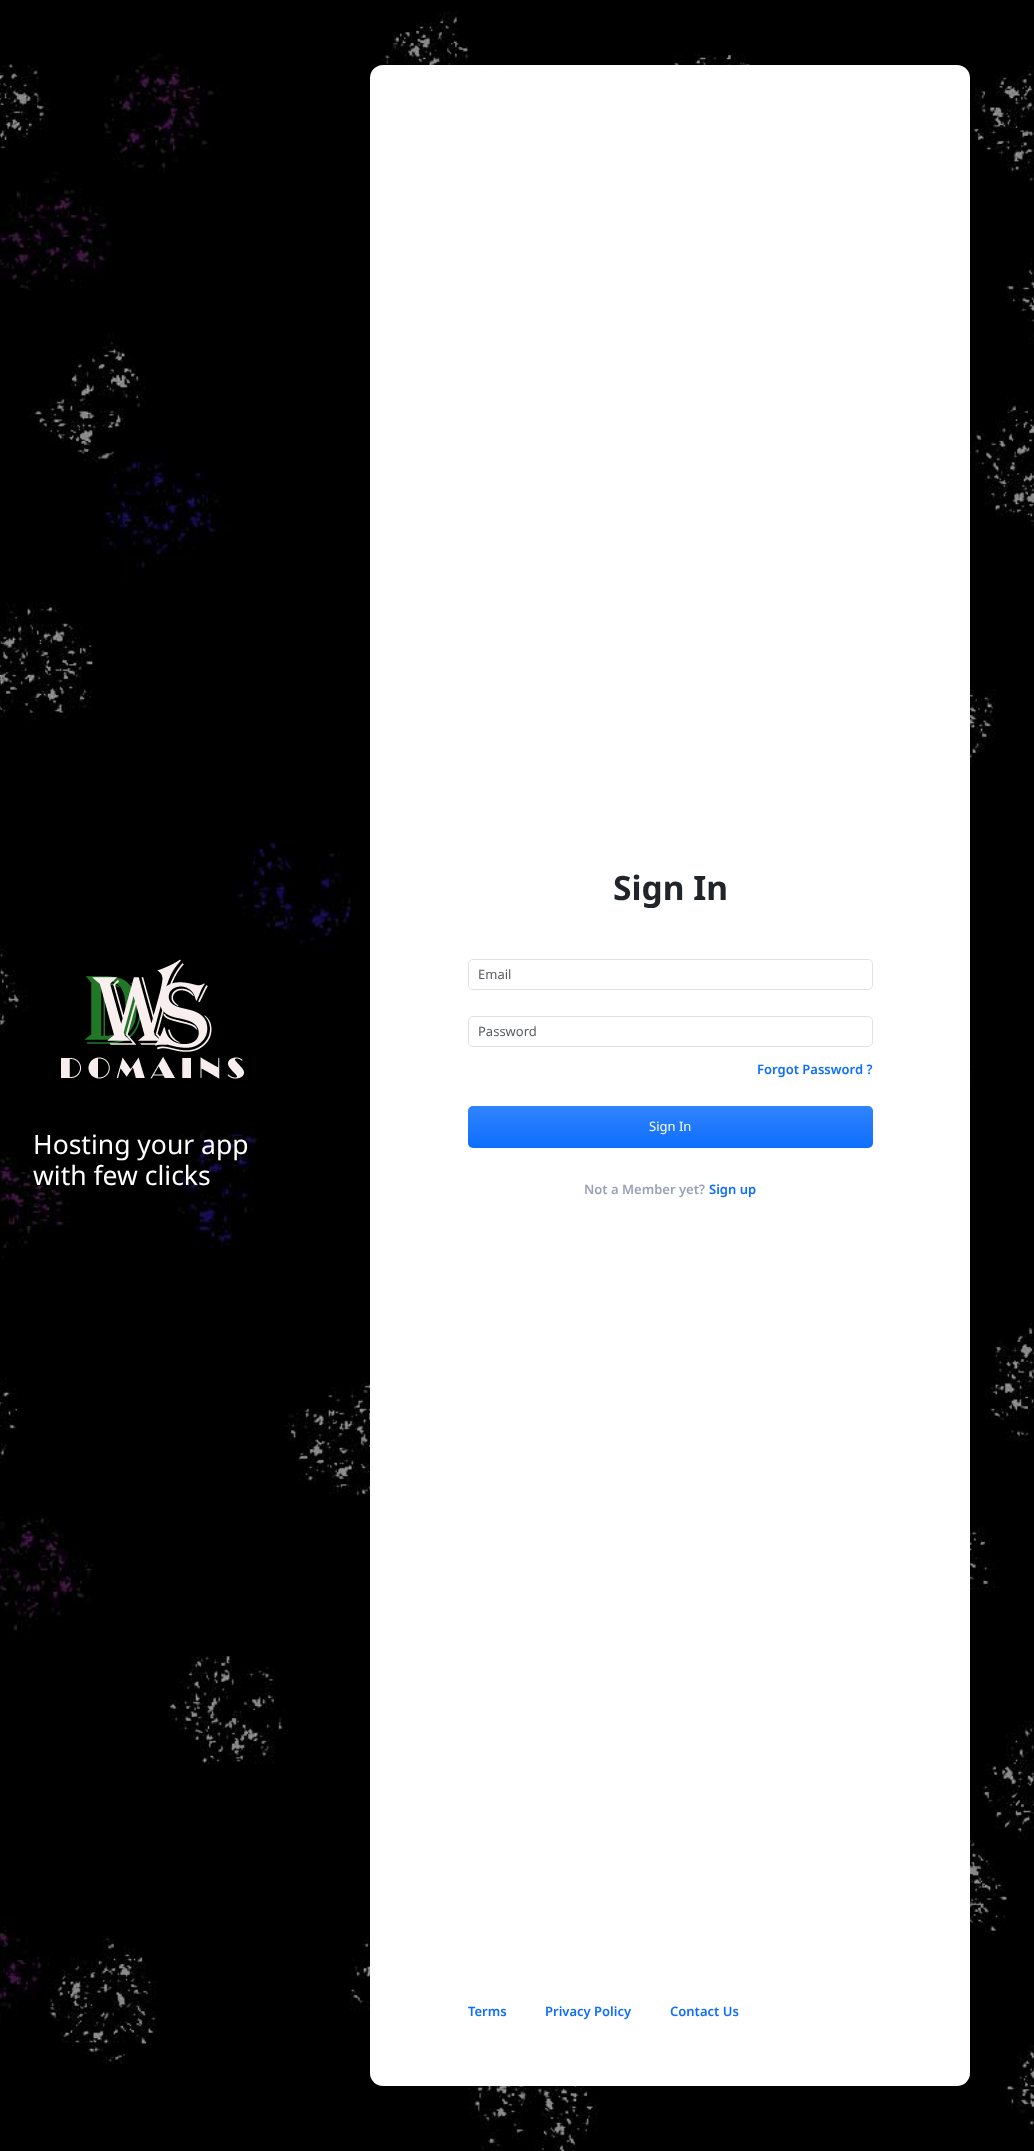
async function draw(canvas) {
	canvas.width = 1034;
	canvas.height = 2151;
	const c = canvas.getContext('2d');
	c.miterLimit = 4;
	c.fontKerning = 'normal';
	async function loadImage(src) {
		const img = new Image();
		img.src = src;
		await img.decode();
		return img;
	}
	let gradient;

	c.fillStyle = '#fff';
	c.fillRect(0, 0, 1034, 2151);
	c.drawImage(await loadImage('img1.png'), 0, 0, 1034, 2151);
	c.drawImage(await loadImage('img2.png'), 61, 959, 183, 120);
	c.font = '26.5px Noto Sans';
	c.fillText('Hosting your app', 33, 1154);
	c.fillText('with few clicks', 33, 1185);
	c.beginPath();
	c.roundRect(370, 65, 600, 2021, 13);
	c.fill();
	c.font = 'bold 33.5px Noto Sans';
	c.fillStyle = '#212529';
	c.fillText('Sign In', 613, 900);
	c.beginPath();
	c.roundRect(468.5, 959.5, 404, 30, 4.5);
	c.strokeStyle = '#dee2e6';
	c.stroke();
	c.font = '13px Noto Sans';
	c.fillStyle = '#595c5f';
	c.fillText('Email', 478, 979);
	c.beginPath();
	c.roundRect(468.5, 1016.5, 404, 30, 4.5);
	c.stroke();
	c.fillText('Password', 478, 1036);
	c.font = '600 13px Noto Sans';
	c.fillStyle = '#0d6efd';
	c.fillText('Forgot Password ?', 757, 1074);
	c.beginPath();
	c.roundRect(468, 1106, 405, 42, 5);
	c.fill();
	gradient = c.createLinearGradient(671, 1106, 671, 1148);
	gradient.addColorStop(0, '#ffffff26');
	gradient.addColorStop(1, '#ffffff00');
	c.fillStyle = gradient;
	c.beginPath();
	c.roundRect(468, 1106, 405, 42, 5);
	c.fill();
	c.font = '13px Noto Sans';
	c.fillStyle = '#fff';
	c.fillText('Sign In', 649, 1131);
	c.font = '600 13px Noto Sans';
	c.fillStyle = '#99a1b7';
	c.fillText('Not a Member yet?', 584, 1194);
	c.fillStyle = '#0d6efd';
	for (const [text, x, y] of [
		['Sign up', 709, 1194],
		['Terms', 468, 2016],
		['Privacy Policy', 545, 2016],
		['Contact Us', 670, 2016],
	]) {
		c.fillText(text, x, y);
	}
}

draw(document.querySelector('canvas'));
